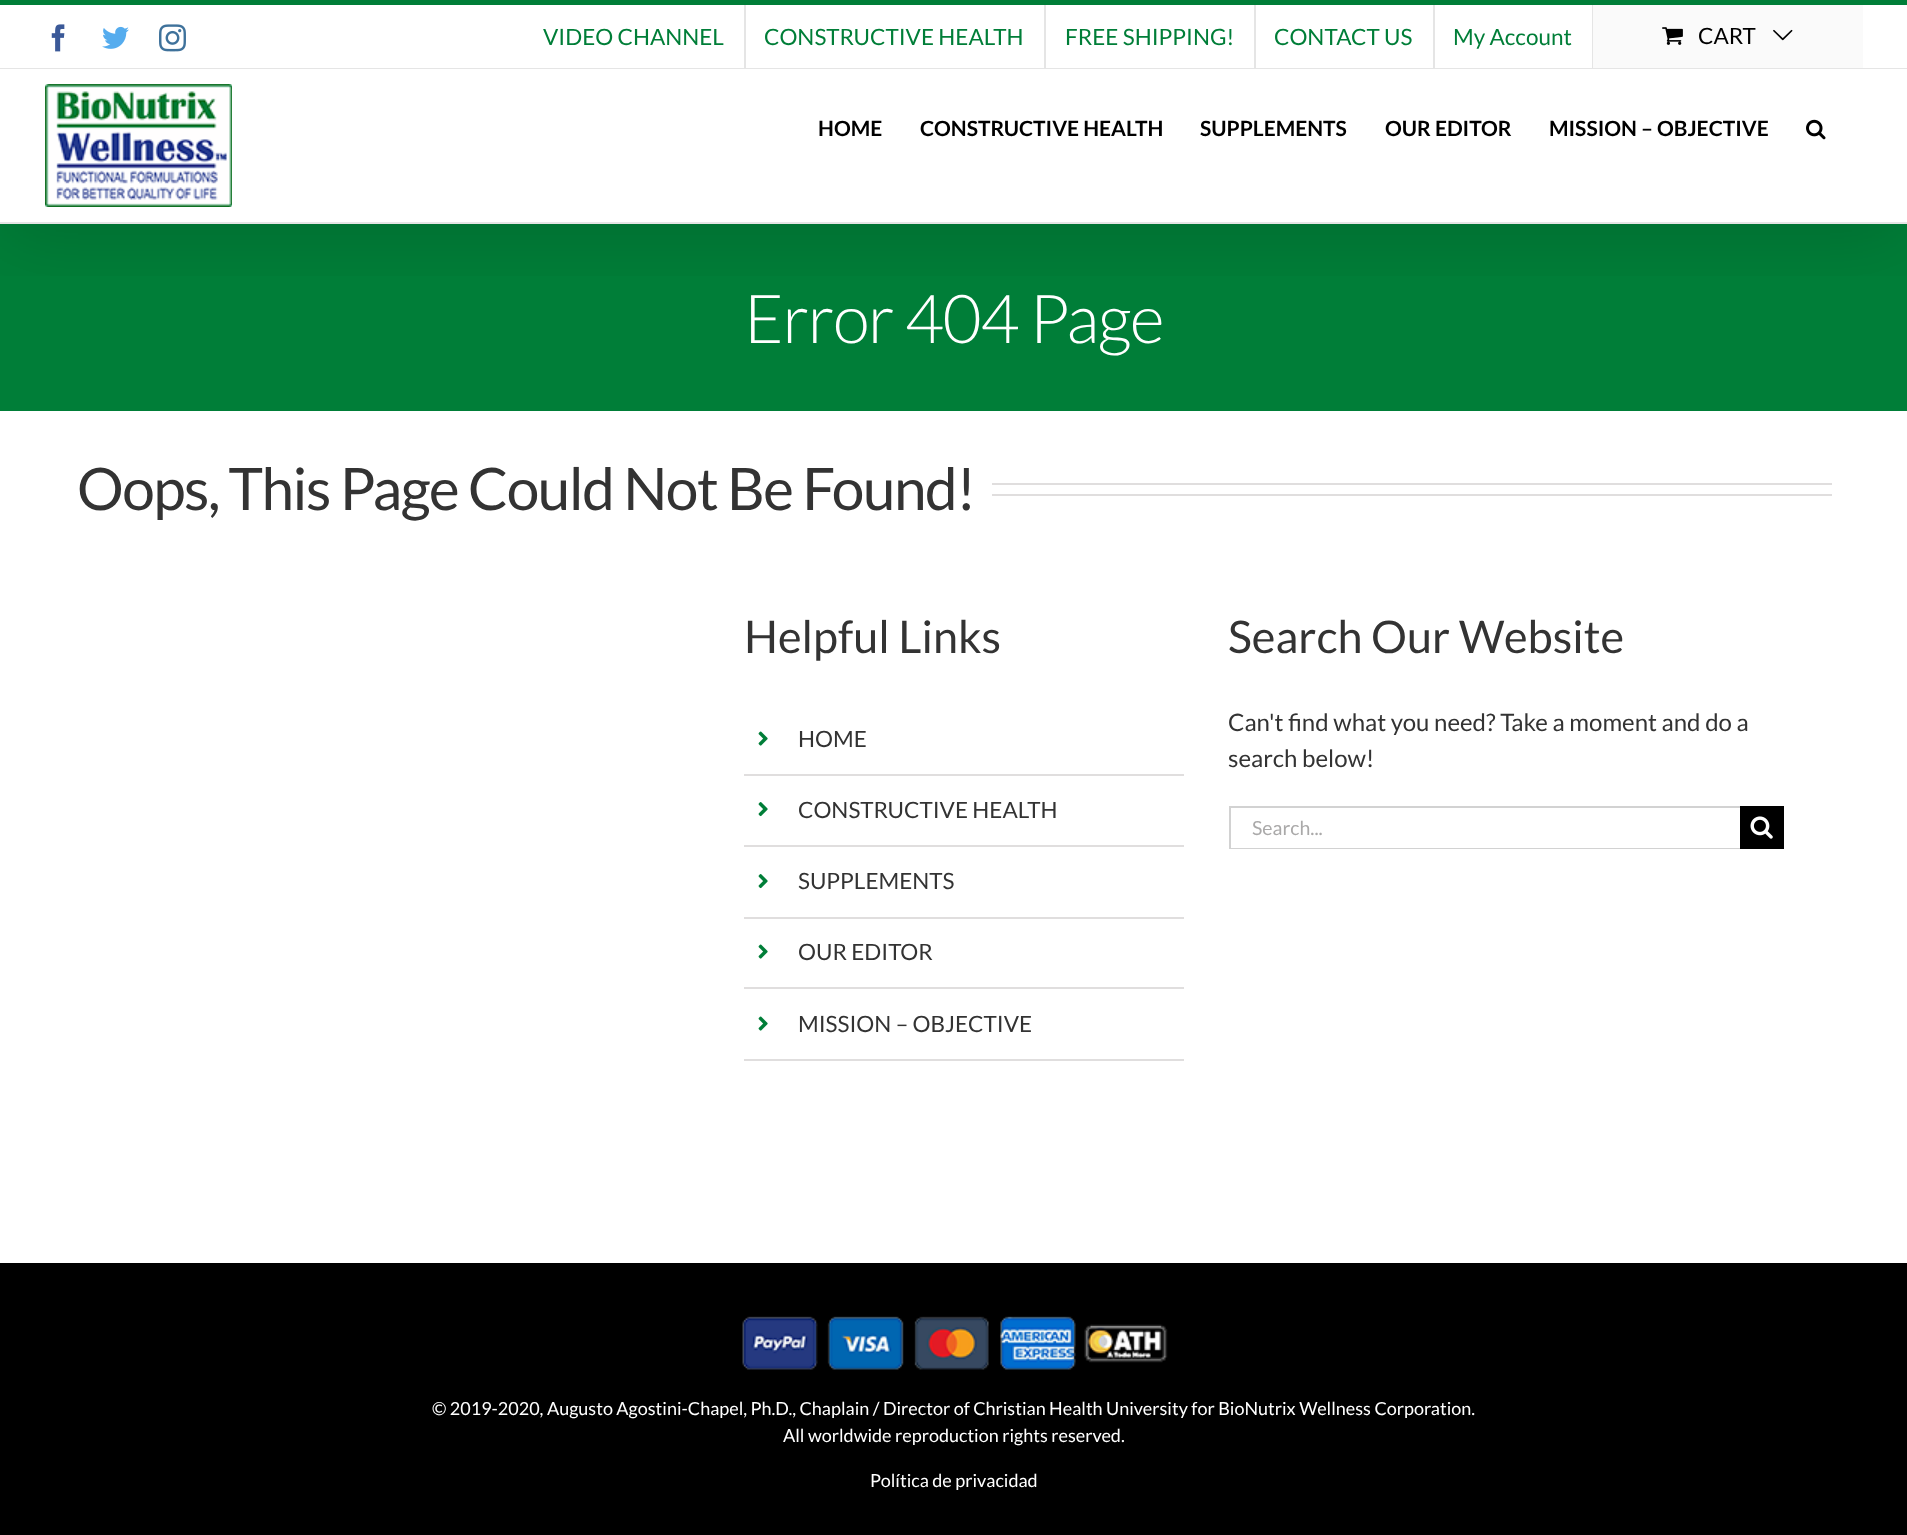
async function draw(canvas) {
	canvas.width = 1907;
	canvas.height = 1535;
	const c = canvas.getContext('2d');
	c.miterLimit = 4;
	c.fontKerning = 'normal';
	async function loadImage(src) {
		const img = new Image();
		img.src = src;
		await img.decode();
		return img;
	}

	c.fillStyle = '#fff';
	c.fillRect(0, 0, 1907, 1535);
	c.fillStyle = '#007e38';
	c.fillRect(0, 224, 1907, 187);
	c.save();
	c.beginPath();
	c.rect(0, 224, 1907, 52);
	c.clip();
	c.fillStyle = '#00000024';
	c.filter = 'blur(37.5px)';
	c.beginPath();
	c.rect(3, 18, 1902, 218);
	c.fill();
	c.filter = 'none';
	c.restore();
	c.fillRect(0, 0, 1907, 5);
	c.fillStyle = '#e5e5e5';
	c.fillRect(0, 68, 1907, 1);
	c.drawImage(await loadImage('img1.png'), 51, 24, 14, 28);
	c.drawImage(await loadImage('img2.png'), 102, 26, 27, 23);
	c.drawImage(await loadImage('img3.png'), 159, 24, 27, 28);
	c.font = '22.5px Lato';
	c.fillStyle = '#007e38';
	c.fillText('VIDEO CHANNEL', 543, 45);
	c.fillStyle = '#e5e5e5';
	c.fillRect(744, 5, 2, 63);
	c.fillStyle = '#007e38';
	c.fillText('CONSTRUCTIVE HEALTH', 764, 45);
	c.fillStyle = '#e5e5e5';
	c.fillRect(1044, 5, 2, 63);
	c.fillStyle = '#007e38';
	c.fillText('FREE SHIPPING!', 1065, 45);
	c.fillStyle = '#e5e5e5';
	c.fillRect(1254, 5, 2, 63);
	c.fillStyle = '#007e38';
	c.fillText('CONTACT US', 1274, 45);
	c.fillStyle = '#e5e5e5';
	c.fillRect(1433, 5, 2, 63);
	c.fillStyle = '#007e38';
	c.fillText('My Account', 1453, 45);
	c.fillStyle = '#e5e5e5';
	c.fillRect(1592, 5, 1, 63);
	c.fillStyle = '#fafafa';
	c.fillRect(1593, 5, 270, 63);
	c.drawImage(await loadImage('img4.png'), 1662, 27, 21, 18);
	c.fillStyle = '#000';
	c.fillText('CART', 1698, 44);
	c.drawImage(await loadImage('img5.png'), 1773, 29, 20, 12);
	c.fillStyle = '#e5e5e5';
	c.fillRect(0, 222, 1907, 2);
	c.drawImage(await loadImage('img6.png'), 45, 84, 187, 123);
	c.font = 'bold 21px Lato';
	c.fillStyle = '#000';
	for (const [text, x, y] of [
		['HOME', 818, 136],
		['CONSTRUCTIVE HEALTH', 920, 136],
		['SUPPLEMENTS', 1200, 136],
		['OUR EDITOR', 1385, 136],
		['MISSION – OBJECTIVE', 1549, 136],
	]) {
		c.fillText(text, x, y);
	}
	c.drawImage(await loadImage('img7.png'), 1806, 119, 20, 21);
	c.letterSpacing = '-1.5px';
	c.font = '300 67.5px Lato';
	c.fillStyle = '#fff';
	c.fillText('Error 404 Page', 744, 343);
	c.font = '58.5px Lato';
	c.fillStyle = '#333';
	c.fillText('Oops, This Page Could Not Be Found!', 77, 510);
	c.fillStyle = '#e0dede';
	c.fillRect(992, 483, 840, 2);
	c.fillRect(992, 494, 840, 2);
	c.letterSpacing = '0px';
	c.font = '45px Lato';
	c.fillStyle = '#333';
	c.fillText('Helpful Links', 744, 653);
	c.fillStyle = '#e0dede';
	c.fillRect(744, 774, 440, 2);
	c.drawImage(await loadImage('img8.png'), 758, 731, 10, 15);
	c.font = '22.5px Lato';
	c.fillStyle = '#333';
	c.fillText('HOME', 798, 747);
	c.fillStyle = '#e0dede';
	c.fillRect(744, 845, 440, 2);
	c.drawImage(await loadImage('img9.png'), 758, 802, 10, 15);
	c.fillStyle = '#333';
	c.fillText('CONSTRUCTIVE HEALTH', 798, 818);
	c.fillStyle = '#e0dede';
	c.fillRect(744, 917, 440, 2);
	c.drawImage(await loadImage('img9.png'), 758, 874, 10, 15);
	c.fillStyle = '#333';
	c.fillText('SUPPLEMENTS', 798, 889);
	c.fillStyle = '#e0dede';
	c.fillRect(744, 987, 440, 2);
	c.drawImage(await loadImage('img8.png'), 758, 944, 10, 15);
	c.fillStyle = '#333';
	c.fillText('OUR EDITOR', 798, 960);
	c.fillStyle = '#e0dede';
	c.fillRect(744, 1059, 440, 2);
	c.drawImage(await loadImage('img8.png'), 758, 1016, 10, 15);
	c.fillStyle = '#333';
	c.fillText('MISSION – OBJECTIVE', 798, 1032);
	c.font = '45px Lato';
	c.fillText('Search Our Website', 1228, 653);
	c.font = '24px Lato';
	c.fillText('Can\'t find what you need? Take a moment and do a', 1228, 731);
	c.fillText('search below!', 1228, 767);
	for (const [x, y, w, h, color] of [
		[1229, 806, 511, 2, '#d2d2d2'],
		[1229, 848, 511, 1, '#d2d2d2'],
		[1229, 806, 2, 43, '#d2d2d2'],
	]) {
		c.fillStyle = color;
		c.fillRect(x, y, w, h);
	}
	c.font = '19.5px Lato';
	c.fillStyle = '#aaa9a9';
	c.fillText('Search...', 1252, 835);
	c.fillStyle = '#000';
	c.fillRect(1740, 806, 44, 43);
	c.drawImage(await loadImage('img10.png'), 1750, 816, 23, 23);
	c.fillRect(0, 1263, 1907, 272);
	c.drawImage(await loadImage('img11.png'), 742, 1316, 426, 54);
	c.font = '18px Lato';
	c.fillStyle = '#fff';
	for (const [text, x, y] of [
		['© 2019-2020, Augusto Agostini-Chapel, Ph.D., Chaplain / Director of Christian Health University for BioNutrix Wellness Corporation.', 432, 1415],
		['All worldwide reproduction rights reserved.', 783, 1442],
		['Política de privacidad', 870, 1487],
	]) {
		c.fillText(text, x, y);
	}
}

draw(document.querySelector('canvas'));
